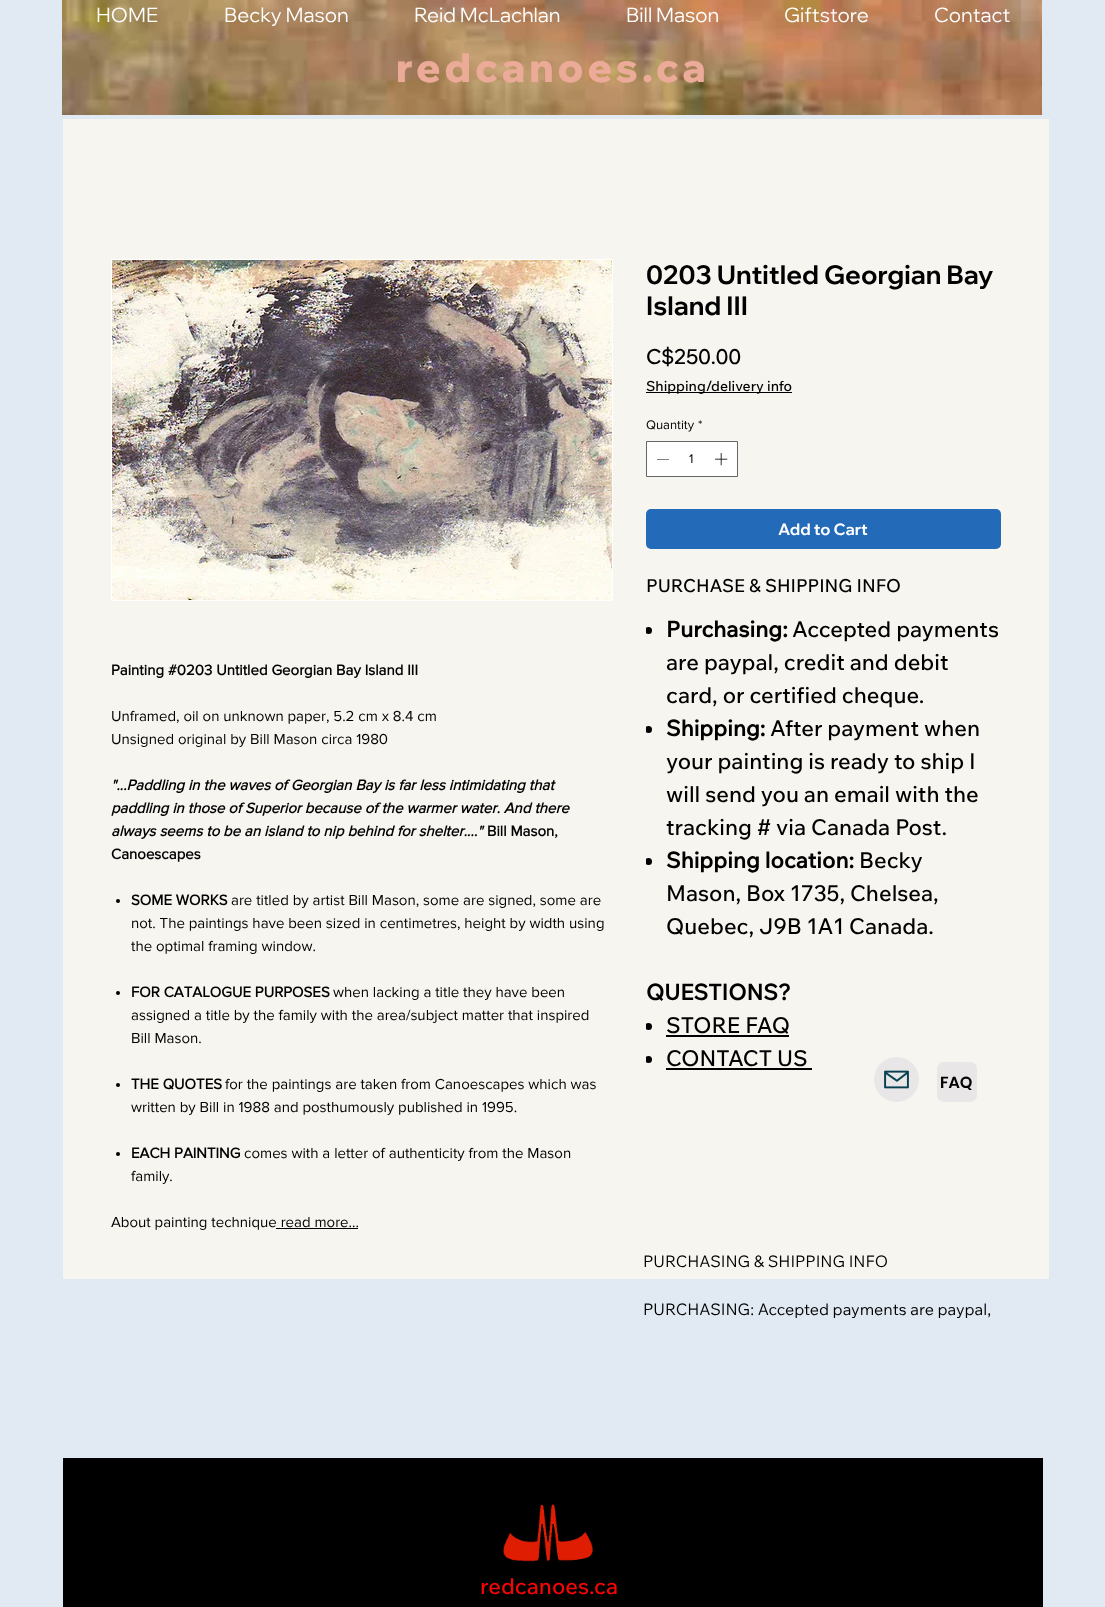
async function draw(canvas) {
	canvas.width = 1105;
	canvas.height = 1607;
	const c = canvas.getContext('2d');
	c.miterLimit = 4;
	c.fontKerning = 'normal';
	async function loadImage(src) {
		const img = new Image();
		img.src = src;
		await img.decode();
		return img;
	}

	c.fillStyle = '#e1eaf2';
	c.fillRect(0, 0, 1105, 1607);
	c.drawImage(await loadImage('img1.png'), 62, 0, 980, 115);
	c.font = '20px Wix Madefor Display';
	c.fillStyle = '#fff';
	for (const [text, x, y] of [
		['HOME', 96, 22],
		['Becky Mason', 224, 22],
		['Reid McLachlan', 414, 22],
		['Bill Mason', 626, 22],
		['Giftstore', 784, 22],
		['Contact', 934, 22],
	]) {
		c.fillText(text, x, y);
	}
	c.letterSpacing = '4px';
	c.font = '800 40px Wix Madefor Display';
	c.fillStyle = '#ebab98';
	c.fillText('redcanoes.ca', 396, 82);
	c.fillStyle = '#f7f5f0';
	c.fillRect(63, 119, 986, 1160);
	c.strokeStyle = '#fff';
	c.strokeRect(111.5, 259.5, 501, 341);
	c.drawImage(await loadImage('img2.png'), 112, 260, 500, 340);
	c.letterSpacing = '0px';
	c.font = 'bold 15px "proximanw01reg"';
	c.fillStyle = '#000';
	c.fillText('Painting #0203 Untitled Georgian Bay Island III', 111, 675);
	c.font = '15px "proximanw01reg"';
	c.fillText('Unframed, oil on unknown paper, 5.2 cm x 8.4 cm', 111, 721);
	c.fillText('Unsigned original by Bill Mason circa 1980', 111, 744);
	c.font = 'italic bold 15px "proximanw01reg"';
	for (const [text, x, y] of [
		['"...Paddling in the waves of Georgian Bay is far less intimidating that', 111, 790],
		['paddling in those of Superior because of the warmer water. And there', 111, 813],
		['always seems to be an island to nip behind for shelter...."', 111, 836],
	]) {
		c.fillText(text, x, y);
	}
	c.font = 'bold 15px "proximanw01reg"';
	c.fillText('Bill Mason,', 487, 836);
	c.fillText('Canoescapes', 111, 859);
	c.beginPath();
	c.arc(118, 901, 2, 0, 2 * Math.PI);
	c.fill();
	c.fillText('SOME WORKS', 131, 905);
	c.font = '15px "proximanw01reg"';
	for (const [text, x, y] of [
		['are titled by artist Bill Mason, some are signed, some are', 231, 905],
		['not. The paintings have been sized in centimetres, height by width using', 131, 928],
		['the optimal framing window.', 131, 951],
	]) {
		c.fillText(text, x, y);
	}
	c.beginPath();
	c.arc(118, 993, 2, 0, 2 * Math.PI);
	c.fill();
	c.font = 'bold 15px "proximanw01reg"';
	c.fillText('FOR CATALOGUE PURPOSES', 131, 997);
	c.font = '15px "proximanw01reg"';
	for (const [text, x, y] of [
		['when lacking a title they have been', 333, 997],
		['assigned a title by the family with the area/subject matter that inspired', 131, 1020],
		['Bill Mason.', 131, 1043],
	]) {
		c.fillText(text, x, y);
	}
	c.beginPath();
	c.arc(118, 1085, 2, 0, 2 * Math.PI);
	c.fill();
	c.font = 'bold 15px "proximanw01reg"';
	c.fillText('THE QUOTES', 131, 1089);
	c.font = '15px "proximanw01reg"';
	c.fillText('for the paintings are taken from Canoescapes which was', 225, 1089);
	c.fillText('written by Bill in 1988 and posthumously published in 1995.', 131, 1112);
	c.beginPath();
	c.arc(118, 1154, 2, 0, 2 * Math.PI);
	c.fill();
	c.font = 'bold 15px "proximanw01reg"';
	c.fillText('EACH PAINTING', 131, 1158);
	c.font = '15px "proximanw01reg"';
	for (const [text, x, y] of [
		['comes with a letter of authenticity from the Mason', 244, 1158],
		['family.', 131, 1181],
		['About painting technique read more...', 111, 1227],
	]) {
		c.fillText(text, x, y);
	}
	c.fillRect(276, 1228, 82, 1);
	c.font = 'bold 26px Wix Madefor Display';
	c.fillText('0203 Untitled Georgian Bay', 646, 284);
	c.fillText('Island III', 646, 315);
	c.font = 'bold 20px "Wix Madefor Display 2"';
	c.fillText('C$250.00', 646, 364);
	c.fillRect(646, 392, 146, 1);
	c.font = '500 14px Wix Madefor Text';
	c.fillText('Shipping/delivery info', 646, 391);
	c.font = '13px "proximanw01reg"';
	c.fillText('Quantity', 646, 429);
	c.fillText('*', 698, 429);
	c.fillStyle = '#fff';
	c.beginPath();
	c.rect(646.5, 441.5, 91, 35);
	c.fill();
	c.strokeStyle = '#666';
	c.stroke();
	c.fillStyle = '#000';
	c.beginPath();
	c.moveTo(669, 459);
	c.lineTo(669, 459.5);
	c.lineTo(657, 459.5);
	c.lineTo(657, 459);
	c.closePath();
	c.fill('evenodd');
	c.fillText('1', 689, 463);
	c.drawImage(await loadImage('img3.png'), 715, 453, 13, 13);
	c.fillStyle = '#236ab9';
	c.beginPath();
	c.roundRect(646, 509, 355, 40, 5);
	c.fill();
	c.font = 'bold 16px Wix Madefor Display';
	c.fillStyle = '#fff';
	c.fillText('Add to Cart', 778, 535);
	c.font = '500 18px Wix Madefor Text';
	c.fillStyle = '#000';
	c.fillText('PURCHASE & SHIPPING INFO', 646, 592);
	c.save();
	c.beginPath();
	c.rect(646, 573, 355, 502);
	c.clip();
	c.beginPath();
	c.arc(648.5, 630.5, 3.5, 0, 2 * Math.PI);
	c.fill();
	c.restore();
	c.font = 'bold 22px Wix Madefor Text';
	c.fillText('Purchasing:', 666, 637);
	c.font = '500 22px Wix Madefor Text';
	for (const [text, x, y] of [
		['Accepted payments', 792, 637],
		['are paypal, credit and debit', 666, 670],
		['card, or certified cheque.', 666, 703],
	]) {
		c.fillText(text, x, y);
	}
	c.save();
	c.beginPath();
	c.rect(646, 573, 355, 502);
	c.clip();
	c.beginPath();
	c.arc(648.5, 729.5, 3.5, 0, 2 * Math.PI);
	c.fill();
	c.restore();
	c.font = 'bold 22px Wix Madefor Text';
	c.fillText('Shipping:', 666, 736);
	c.font = '500 22px Wix Madefor Text';
	for (const [text, x, y] of [
		['After payment when', 770, 736],
		['your painting is ready to ship I', 666, 769],
		['will send you an email with the', 666, 802],
		['tracking # via Canada Post.', 666, 835],
	]) {
		c.fillText(text, x, y);
	}
	c.save();
	c.beginPath();
	c.rect(646, 573, 355, 502);
	c.clip();
	c.beginPath();
	c.arc(648.5, 861.5, 3.5, 0, 2 * Math.PI);
	c.fill();
	c.restore();
	c.font = 'bold 22px Wix Madefor Text';
	c.fillText('Shipping location:', 666, 868);
	c.font = '500 22px Wix Madefor Text';
	for (const [text, x, y] of [
		['Becky', 859, 868],
		['Mason, Box 1735, Chelsea,', 666, 901],
		['Quebec, J9B 1A1 Canada.', 666, 934],
	]) {
		c.fillText(text, x, y);
	}
	c.font = 'bold 22px Wix Madefor Text';
	c.fillText('QUESTIONS?', 646, 1000);
	c.save();
	c.beginPath();
	c.rect(646, 573, 355, 502);
	c.clip();
	c.beginPath();
	c.arc(648.5, 1026.5, 3.5, 0, 2 * Math.PI);
	c.fill();
	c.restore();
	c.font = '500 22px Wix Madefor Text';
	c.fillText('STORE FAQ', 666, 1033);
	c.fillRect(666, 1035, 123, 2);
	c.save();
	c.beginPath();
	c.rect(646, 573, 355, 502);
	c.clip();
	c.beginPath();
	c.arc(648.5, 1059.5, 3.5, 0, 2 * Math.PI);
	c.fill();
	c.restore();
	c.fillText('CONTACT US', 666, 1066);
	c.fillRect(666, 1068, 146, 2);
	c.fillStyle = '#e8e6e6';
	c.beginPath();
	c.arc(896.5, 1079.5, 22.5, 0, 2 * Math.PI);
	c.fill();
	c.drawImage(await loadImage('img4.png'), 884, 1070, 25, 19);
	c.beginPath();
	c.roundRect(937, 1062, 40, 40, 7);
	c.fill();
	c.font = '600 16px Poppins';
	c.fillStyle = '#000';
	c.fillText('FAQ', 940, 1088);
	c.font = '16px Wix Madefor Text';
	c.fillText('PURCHASING & SHIPPING INFO', 643, 1267);
	c.fillText('PURCHASING: Accepted payments are paypal,', 643, 1315);
	c.fillRect(63, 1458, 980, 149);
	c.drawImage(await loadImage('img5.png'), 503, 1504, 90, 58);
	c.font = '500 22px Wix Madefor Text';
	c.fillStyle = '#f50505';
	c.fillText('redcanoes.ca', 480, 1594);
}

draw(document.querySelector('canvas'));
